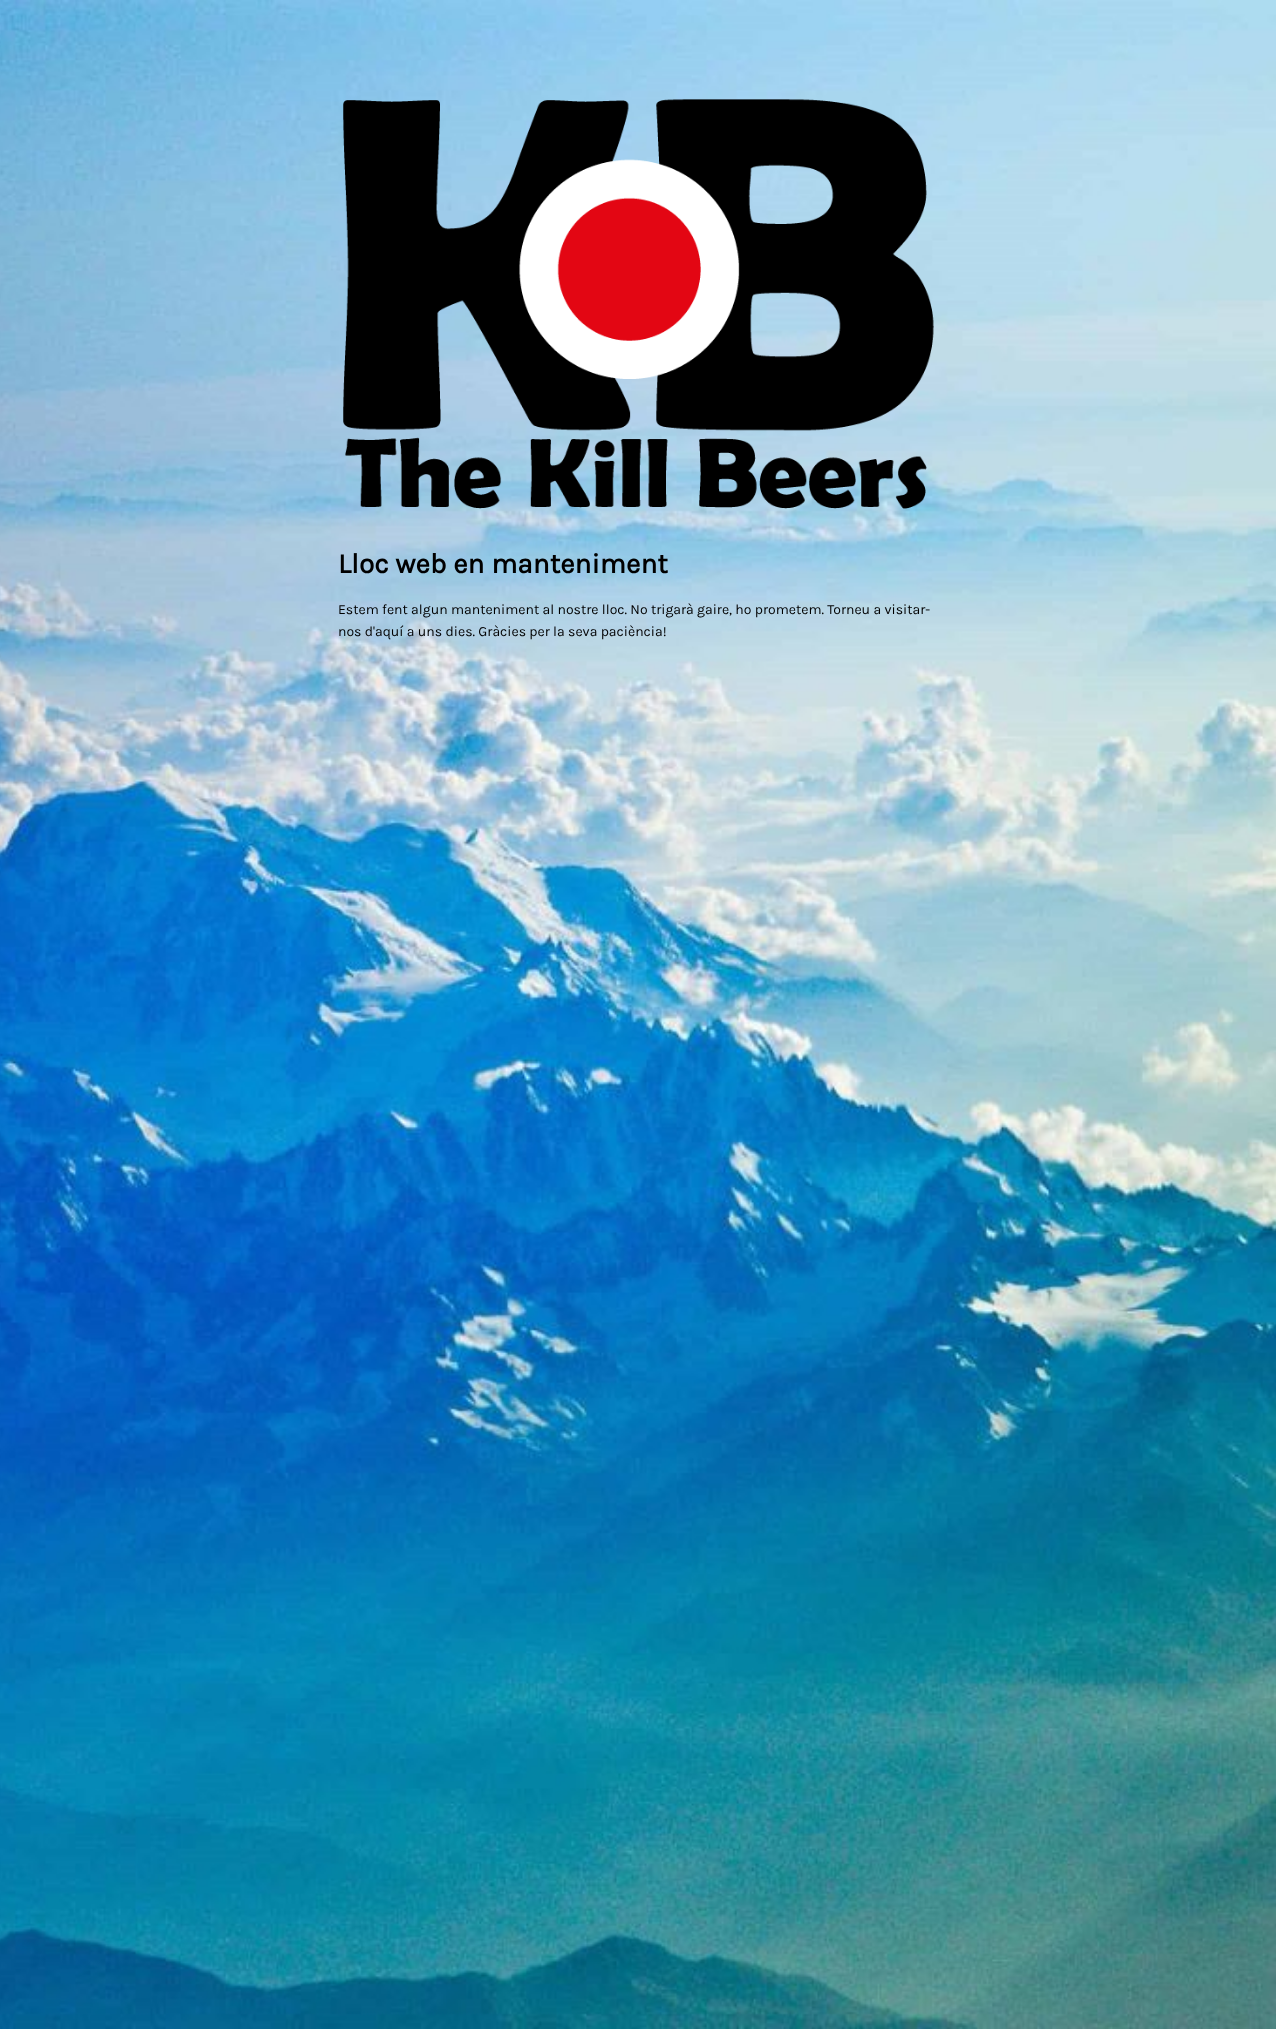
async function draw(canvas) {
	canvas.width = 1276;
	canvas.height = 2029;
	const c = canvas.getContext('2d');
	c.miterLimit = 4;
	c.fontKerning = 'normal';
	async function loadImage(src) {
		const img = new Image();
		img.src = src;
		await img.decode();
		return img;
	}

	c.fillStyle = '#fff';
	c.fillRect(0, 0, 1276, 2029);
	c.drawImage(await loadImage('img1.png'), 0, 0, 1276, 2029);
	c.drawImage(await loadImage('img2.png'), 343, 99, 591, 410);
	c.font = 'bold 28px Karla';
	c.fillStyle = '#000';
	c.fillText('Lloc web en manteniment', 338, 573);
	c.font = '14px Karla';
	c.fillText('Estem fent algun manteniment al nostre lloc. No trigarà gaire, ho prometem. Torneu a visitar-', 338, 614);
	c.fillText('nos d\'aquí a uns dies. Gràcies per la seva paciència!', 338, 636);
}

draw(document.querySelector('canvas'));
